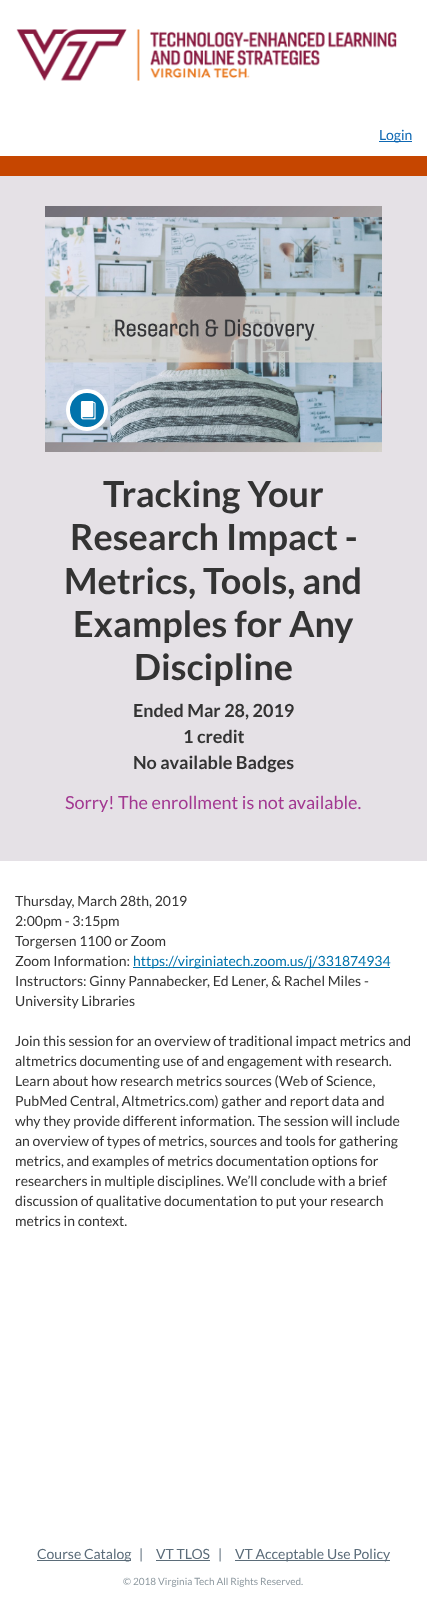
async function draw(canvas) {
	canvas.width = 427;
	canvas.height = 1613;
	const c = canvas.getContext('2d');
	c.miterLimit = 4;
	c.fontKerning = 'normal';
	async function loadImage(src) {
		const img = new Image();
		img.src = src;
		await img.decode();
		return img;
	}

	c.fillStyle = '#fff';
	c.fillRect(0, 0, 427, 1613);
	c.drawImage(await loadImage('img1.png'), 16, 29, 381, 52);
	c.fillStyle = '#0e68b3';
	c.fillRect(379, 141, 33, 1);
	c.font = '14px Lato';
	c.fillText('Login', 379, 140);
	c.fillStyle = '#c64600';
	c.fillRect(0, 156, 427, 20);
	c.fillStyle = '#e5e1e6';
	c.fillRect(0, 176, 427, 685);
	c.drawImage(await loadImage('img2.png'), 45, 206, 337, 246);
	c.fillStyle = '#0073ac';
	c.beginPath();
	c.arc(87, 410, 19, 0, 2 * Math.PI);
	c.fill();
	c.strokeStyle = '#fff';
	c.lineWidth = 4;
	c.stroke();
	c.drawImage(await loadImage('img3.png'), 80, 401, 16, 19);
	c.font = 'bold 36px Lato';
	c.fillStyle = '#333';
	for (const [text, x, y] of [
		['Tracking Your', 103, 507],
		['Research Impact -', 70, 550],
		['Metrics, Tools, and', 64, 594],
		['Examples for Any', 73, 637],
		['Discipline', 134, 680],
	]) {
		c.fillText(text, x, y);
	}
	c.font = 'bold 18px Lato';
	for (const [text, x, y] of [
		['Ended Mar 28, 2019', 133, 717],
		['1 credit', 183, 743],
		['No available Badges', 133, 769],
	]) {
		c.fillText(text, x, y);
	}
	c.font = '18px Lato';
	c.fillStyle = '#a23891';
	c.fillText('Sorry! The enrollment is not available.', 65, 809);
	c.font = '14px Lato';
	c.fillStyle = '#333';
	for (const [text, x, y] of [
		['Thursday, March 28th, 2019', 15, 906],
		['2:00pm - 3:15pm', 15, 926],
		['Torgersen 1100 or Zoom', 15, 946],
		['Zoom Information:', 15, 966],
	]) {
		c.fillText(text, x, y);
	}
	c.fillStyle = '#0073ac';
	c.fillRect(133, 967, 257, 1);
	c.fillText('https://virginiatech.zoom.us/j/331874934', 133, 966);
	c.fillStyle = '#333';
	for (const [text, x, y] of [
		['Instructors: Ginny Pannabecker, Ed Lener, & Rachel Miles -', 15, 986],
		['University Libraries', 15, 1006],
		['Join this session for an overview of traditional impact metrics and', 15, 1046],
		['altmetrics documenting use of and engagement with research.', 15, 1066],
		['Learn about how research metrics sources (Web of Science,', 15, 1086],
		['PubMed Central, Altmetrics.com) gather and report data and', 15, 1106],
		['why they provide different information. The session will include', 15, 1126],
		['an overview of types of metrics, sources and tools for gathering', 15, 1146],
		['metrics, and examples of metrics documentation options for', 15, 1166],
		['researchers in multiple disciplines. We’ll conclude with a brief', 15, 1186],
		['discussion of qualitative documentation to put your research', 15, 1206],
		['metrics in context.', 15, 1226],
	]) {
		c.fillText(text, x, y);
	}
	c.fillStyle = '#5b6c79';
	c.fillRect(37, 1560, 94, 1);
	for (const [text, x, y] of [
		['Course Catalog', 37, 1559],
		['|', 139, 1559],
		['VT TLOS', 156, 1559],
	]) {
		c.fillText(text, x, y);
	}
	c.fillRect(156, 1560, 54, 1);
	c.fillText('|', 218, 1559);
	c.fillRect(235, 1560, 155, 1);
	c.fillText('VT Acceptable Use Policy', 235, 1559);
	c.font = '10px Lato';
	c.fillStyle = '#8e99a0';
	c.fillText('© 2018 Virginia Tech All Rights Reserved.', 123, 1585);
}

draw(document.querySelector('canvas'));
